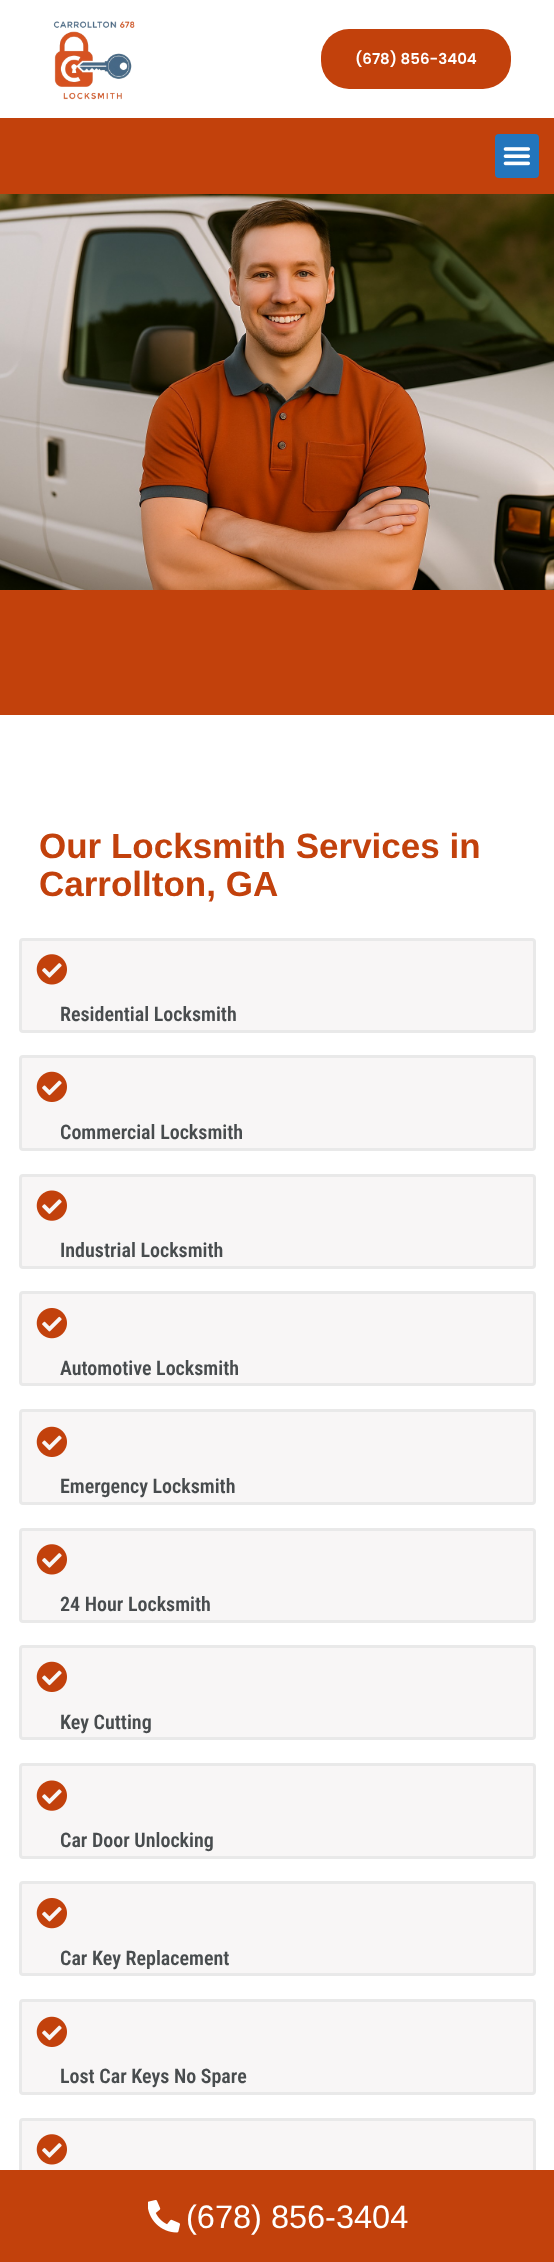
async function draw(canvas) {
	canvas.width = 554;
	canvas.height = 2262;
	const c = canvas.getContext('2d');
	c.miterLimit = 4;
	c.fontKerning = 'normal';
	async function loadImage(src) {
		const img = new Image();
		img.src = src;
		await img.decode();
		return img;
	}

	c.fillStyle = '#fff';
	c.fillRect(0, 0, 554, 2262);
	c.drawImage(await loadImage('img1.png'), 53, 21, 82, 79);
	c.fillStyle = '#c2410c';
	c.beginPath();
	c.roundRect(321, 29, 190, 60, 28);
	c.fill();
	c.font = '600 15px Poppins';
	c.fillStyle = '#fff';
	c.fillText('(678) 856-3404', 355, 64);
	c.fillStyle = '#c2410c';
	c.fillRect(0, 118, 554, 76);
	c.fillStyle = '#2375bc';
	c.beginPath();
	c.roundRect(495, 134, 44, 44, 4);
	c.fill();
	c.drawImage(await loadImage('img2.png'), 503, 147, 27, 19);
	c.drawImage(await loadImage('img3.png'), 0, 194, 554, 396);
	c.fillStyle = '#c2410c';
	c.fillRect(0, 590, 554, 125);
	c.font = 'bold 35px Liberation Sans';
	c.fillText('Our Locksmith Services in', 39, 858);
	c.fillText('Carrollton, GA', 39, 896);
	c.fillStyle = '#f8f6f6';
	c.beginPath();
	c.roundRect(20.5, 939.5, 514, 92, 2.5);
	c.fill();
	c.strokeStyle = '#e9e9e9';
	c.lineWidth = 3;
	c.stroke();
	c.drawImage(await loadImage('img4.png'), 36, 954, 31, 31);
	c.font = '600 20px Roboto Condensed';
	c.fillStyle = '#484c4e';
	c.fillText('Residential Locksmith', 60, 1021);
	c.fillStyle = '#f8f6f6';
	c.beginPath();
	c.roundRect(20.5, 1056.5, 514, 93, 2.5);
	c.fill();
	c.stroke();
	c.drawImage(await loadImage('img5.png'), 36, 1071, 31, 31);
	c.fillStyle = '#484c4e';
	c.fillText('Commercial Locksmith', 60, 1139);
	c.fillStyle = '#f8f6f6';
	c.beginPath();
	c.roundRect(20.5, 1175.5, 514, 92, 2.5);
	c.fill();
	c.stroke();
	c.drawImage(await loadImage('img6.png'), 36, 1190, 31, 31);
	c.fillStyle = '#484c4e';
	c.fillText('Industrial Locksmith', 60, 1257);
	c.fillStyle = '#f8f6f6';
	c.beginPath();
	c.roundRect(20.5, 1292.5, 514, 92, 2.5);
	c.fill();
	c.stroke();
	c.drawImage(await loadImage('img7.png'), 36, 1308, 31, 31);
	c.fillStyle = '#484c4e';
	c.fillText('Automotive Locksmith', 60, 1375);
	c.fillStyle = '#f8f6f6';
	c.beginPath();
	c.roundRect(20.5, 1410.5, 514, 93, 2.5);
	c.fill();
	c.stroke();
	c.drawImage(await loadImage('img5.png'), 36, 1426, 31, 31);
	c.fillStyle = '#484c4e';
	c.fillText('Emergency Locksmith', 60, 1493);
	c.fillStyle = '#f8f6f6';
	c.beginPath();
	c.roundRect(20.5, 1529.5, 514, 92, 2.5);
	c.fill();
	c.stroke();
	c.drawImage(await loadImage('img4.png'), 36, 1544, 31, 31);
	c.fillStyle = '#484c4e';
	c.fillText('24 Hour Locksmith', 60, 1611);
	c.fillStyle = '#f8f6f6';
	c.beginPath();
	c.roundRect(20.5, 1646.5, 514, 92, 2.5);
	c.fill();
	c.stroke();
	c.drawImage(await loadImage('img5.png'), 36, 1661, 31, 31);
	c.fillStyle = '#484c4e';
	c.fillText('Key Cutting', 60, 1729);
	c.fillStyle = '#f8f6f6';
	c.beginPath();
	c.roundRect(20.5, 1764.5, 514, 93, 2.5);
	c.fill();
	c.stroke();
	c.drawImage(await loadImage('img6.png'), 36, 1780, 31, 31);
	c.fillStyle = '#484c4e';
	c.fillText('Car Door Unlocking', 60, 1847);
	c.fillStyle = '#f8f6f6';
	c.beginPath();
	c.roundRect(20.5, 1882.5, 514, 92, 2.5);
	c.fill();
	c.stroke();
	c.drawImage(await loadImage('img7.png'), 36, 1898, 31, 31);
	c.fillStyle = '#484c4e';
	c.fillText('Car Key Replacement', 60, 1965);
	c.fillStyle = '#f8f6f6';
	c.beginPath();
	c.roundRect(20.5, 2000.5, 514, 93, 2.5);
	c.fill();
	c.stroke();
	c.drawImage(await loadImage('img5.png'), 36, 2016, 31, 31);
	c.fillStyle = '#484c4e';
	c.fillText('Lost Car Keys No Spare', 60, 2083);
	c.fillStyle = '#f8f6f6';
	c.beginPath();
	c.roundRect(20.5, 2119.5, 514, 92, 2.5);
	c.fill();
	c.stroke();
	c.drawImage(await loadImage('img4.png'), 36, 2134, 31, 31);
	c.fillStyle = '#c2410c';
	c.fillRect(0, 2170, 554, 92);
	c.drawImage(await loadImage('img8.png'), 148, 2200, 32, 33);
	c.font = '32.5px Liberation Sans';
	c.fillStyle = '#fff';
	c.fillText('(678) 856-3404', 186, 2228);
}

draw(document.querySelector('canvas'));
